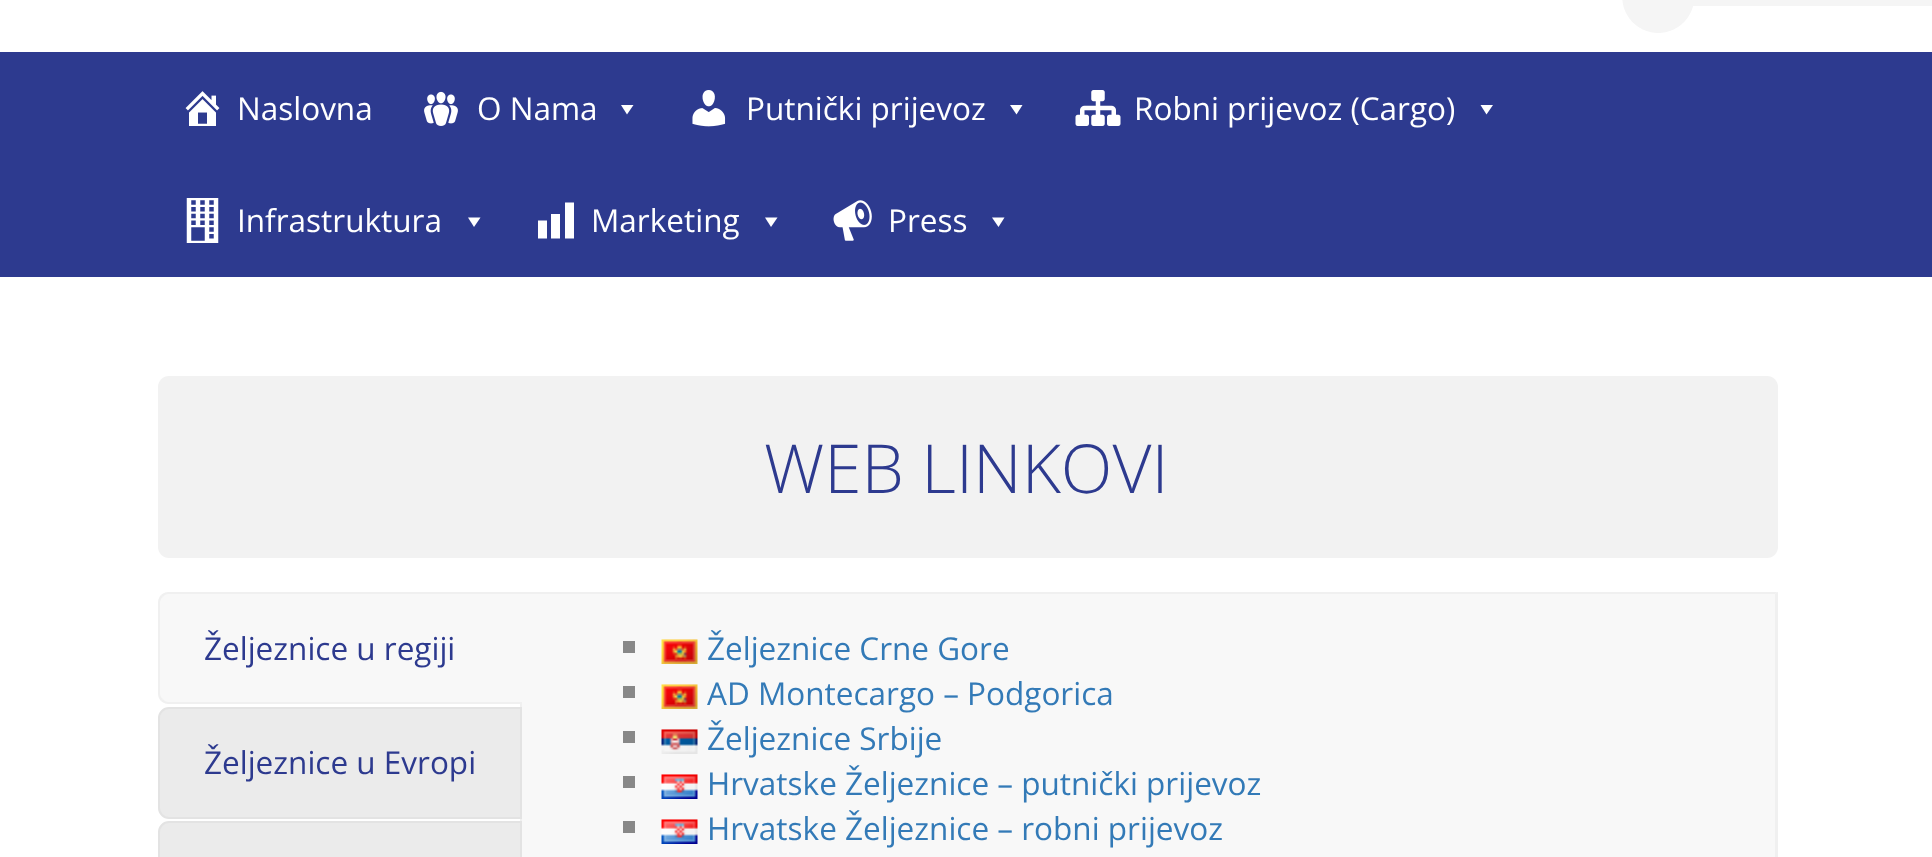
async function draw(canvas) {
	canvas.width = 1932;
	canvas.height = 857;
	const c = canvas.getContext('2d');
	c.miterLimit = 4;
	c.fontKerning = 'normal';
	async function loadImage(src) {
		const img = new Image();
		img.src = src;
		await img.decode();
		return img;
	}

	c.fillStyle = '#fff';
	c.fillRect(0, 0, 1932, 857);
	c.drawImage(await loadImage('img1.png'), 1622, 0, 310, 33);
	c.fillStyle = '#2d3a8f';
	c.fillRect(0, 52, 1932, 225);
	c.drawImage(await loadImage('img2.png'), 185, 91, 35, 35);
	c.font = '31.5px Open Sans';
	c.fillStyle = '#fff';
	c.fillText('Naslovna', 237, 120);
	c.drawImage(await loadImage('img3.png'), 424, 91, 34, 35);
	c.fillText('O Nama', 477, 120);
	c.beginPath();
	c.moveTo(633.5, 105);
	c.lineTo(627, 114.5);
	c.lineTo(621, 105);
	c.closePath();
	c.fill();
	c.drawImage(await loadImage('img4.png'), 692, 90, 34, 37);
	c.fillText('Putnički prijevoz', 746, 120);
	c.beginPath();
	c.moveTo(1022.5, 105);
	c.lineTo(1016.5, 114.5);
	c.lineTo(1010, 105);
	c.closePath();
	c.fill();
	c.drawImage(await loadImage('img5.png'), 1075, 90, 46, 36);
	c.fillText('Robni prijevoz (Cargo)', 1134, 120);
	c.beginPath();
	c.moveTo(1493, 105);
	c.lineTo(1486.5, 114.5);
	c.lineTo(1480.5, 105);
	c.closePath();
	c.fill();
	c.drawImage(await loadImage('img6.png'), 186, 198, 33, 45);
	c.fillText('Infrastruktura', 237, 232);
	c.beginPath();
	c.moveTo(480.5, 217.5);
	c.lineTo(474, 227);
	c.lineTo(468, 217.5);
	c.closePath();
	c.fill();
	c.beginPath();
	c.moveTo(574, 238.5);
	c.lineTo(574, 202.5);
	c.lineTo(565, 202.5);
	c.lineTo(565, 238.5);
	c.closePath();
	c.moveTo(560, 238.5);
	c.lineTo(560, 214);
	c.lineTo(551, 214);
	c.lineTo(551, 238.5);
	c.closePath();
	c.moveTo(547, 238.5);
	c.lineTo(547, 220.5);
	c.lineTo(538, 220.5);
	c.lineTo(538, 238.5);
	c.closePath();
	c.fill();
	c.fillText('Marketing', 591, 232);
	c.beginPath();
	c.moveTo(777.5, 217.5);
	c.lineTo(771, 227);
	c.lineTo(765, 217.5);
	c.closePath();
	c.fill();
	c.drawImage(await loadImage('img7.png'), 833, 200, 39, 41);
	c.fillText('Press', 888, 232);
	c.beginPath();
	c.moveTo(1004.5, 217.5);
	c.lineTo(998.5, 227);
	c.lineTo(992, 217.5);
	c.closePath();
	c.fill();
	c.fillStyle = '#f2f2f2';
	c.beginPath();
	c.roundRect(158, 376, 1620, 182, 11);
	c.fill();
	c.font = '300 67.5px Open Sans';
	c.fillStyle = '#2d3a8f';
	c.fillText('WEB LINKOVI', 764, 493);
	c.fillStyle = '#f8f8f8';
	c.fillRect(522, 592, 1256, 265);
	c.fillStyle = '#f0f0f0';
	c.beginPath();
	c.moveTo(520, 592);
	c.lineTo(522, 594);
	c.lineTo(1775, 594);
	c.lineTo(1777, 592);
	c.closePath();
	c.fill();
	c.fillStyle = '#f8f8f8';
	c.beginPath();
	c.roundRect(158, 592, 364, 112, [11, 0, 0, 11]);
	c.fill();
	c.fillStyle = '#f0f0f0';
	c.beginPath();
	c.moveTo(169, 592);
	c.bezierCurveTo(166, 592, 163, 593, 161, 595);
	c.lineTo(163, 597);
	c.bezierCurveTo(164, 595, 166, 594, 169, 594);
	c.lineTo(520, 594);
	c.lineTo(522, 592);
	c.closePath();
	c.fill();
	c.beginPath();
	c.moveTo(522, 704);
	c.lineTo(169, 704);
	c.bezierCurveTo(166, 704, 163, 703, 161, 701);
	c.lineTo(163, 699);
	c.bezierCurveTo(164, 701, 166, 702, 169, 702);
	c.lineTo(520, 702);
	c.closePath();
	c.fill();
	c.beginPath();
	c.moveTo(161, 595);
	c.bezierCurveTo(159, 597, 158, 600, 158, 603);
	c.lineTo(158, 693);
	c.bezierCurveTo(158, 696, 159, 699, 161, 701);
	c.lineTo(163, 699);
	c.bezierCurveTo(161, 698, 160, 695, 160, 693);
	c.lineTo(160, 603);
	c.bezierCurveTo(160, 601, 161, 598, 163, 597);
	c.closePath();
	c.fill();
	c.fillRect(520, 592, 2, 2);
	c.font = '31.5px Open Sans';
	c.fillStyle = '#2d3a8f';
	c.fillText('Željeznice u regiji', 204, 660);
	c.fillStyle = '#f0f0f0';
	c.fillRect(520, 702, 2, 119);
	c.fillStyle = '#ebebeb';
	c.beginPath();
	c.roundRect(159, 708, 362, 110, [10, 0, 0, 10]);
	c.fill();
	c.strokeStyle = '#e3e3e3';
	c.lineWidth = 2;
	c.stroke();
	c.fillStyle = '#2d3a8f';
	c.fillText('Željeznice u Evropi', 204, 774);
	c.fillStyle = '#ebebeb';
	c.beginPath();
	c.moveTo(169, 822);
	c.lineTo(521, 822);
	c.lineTo(521, 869);
	c.lineTo(169, 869);
	c.bezierCurveTo(163.5, 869, 159, 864.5, 159, 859);
	c.lineTo(159, 832);
	c.bezierCurveTo(159, 826.5, 163.5, 822, 169, 822);
	c.closePath();
	c.fill();
	c.stroke();
	c.fillStyle = '#f0f0f0';
	c.beginPath();
	c.moveTo(1778, 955);
	c.bezierCurveTo(1777, 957, 1776, 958, 1774, 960);
	c.lineTo(1773, 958);
	c.bezierCurveTo(1774, 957, 1775, 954, 1775, 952);
	c.lineTo(1775, 594);
	c.lineTo(1778, 592);
	c.closePath();
	c.fill();
	c.fillStyle = '#888';
	c.fillRect(623, 641, 12, 12);
	c.drawImage(await loadImage('img8.png'), 661, 639, 37, 25);
	c.fillStyle = '#337ab7';
	c.fillText('Željeznice Crne Gore', 707, 660);
	c.fillStyle = '#888';
	c.fillRect(623, 686, 12, 12);
	c.drawImage(await loadImage('img8.png'), 661, 684, 37, 25);
	c.fillStyle = '#337ab7';
	c.fillText('AD Montecargo – Podgorica', 707, 705);
	c.fillStyle = '#888';
	c.fillRect(623, 731, 12, 12);
	c.drawImage(await loadImage('img9.png'), 661, 729, 37, 25);
	c.fillStyle = '#337ab7';
	c.fillText('Željeznice Srbije', 707, 750);
	c.fillStyle = '#888';
	c.fillRect(623, 776, 12, 12);
	c.drawImage(await loadImage('img10.png'), 661, 774, 37, 25);
	c.fillStyle = '#337ab7';
	c.fillText('Hrvatske Željeznice – putnički prijevoz', 707, 795);
	c.fillStyle = '#888';
	c.fillRect(623, 821, 12, 12);
	c.drawImage(await loadImage('img10.png'), 661, 819, 37, 25);
	c.fillStyle = '#337ab7';
	c.fillText('Hrvatske Željeznice – robni prijevoz', 707, 840);
}

draw(document.querySelector('canvas'));
